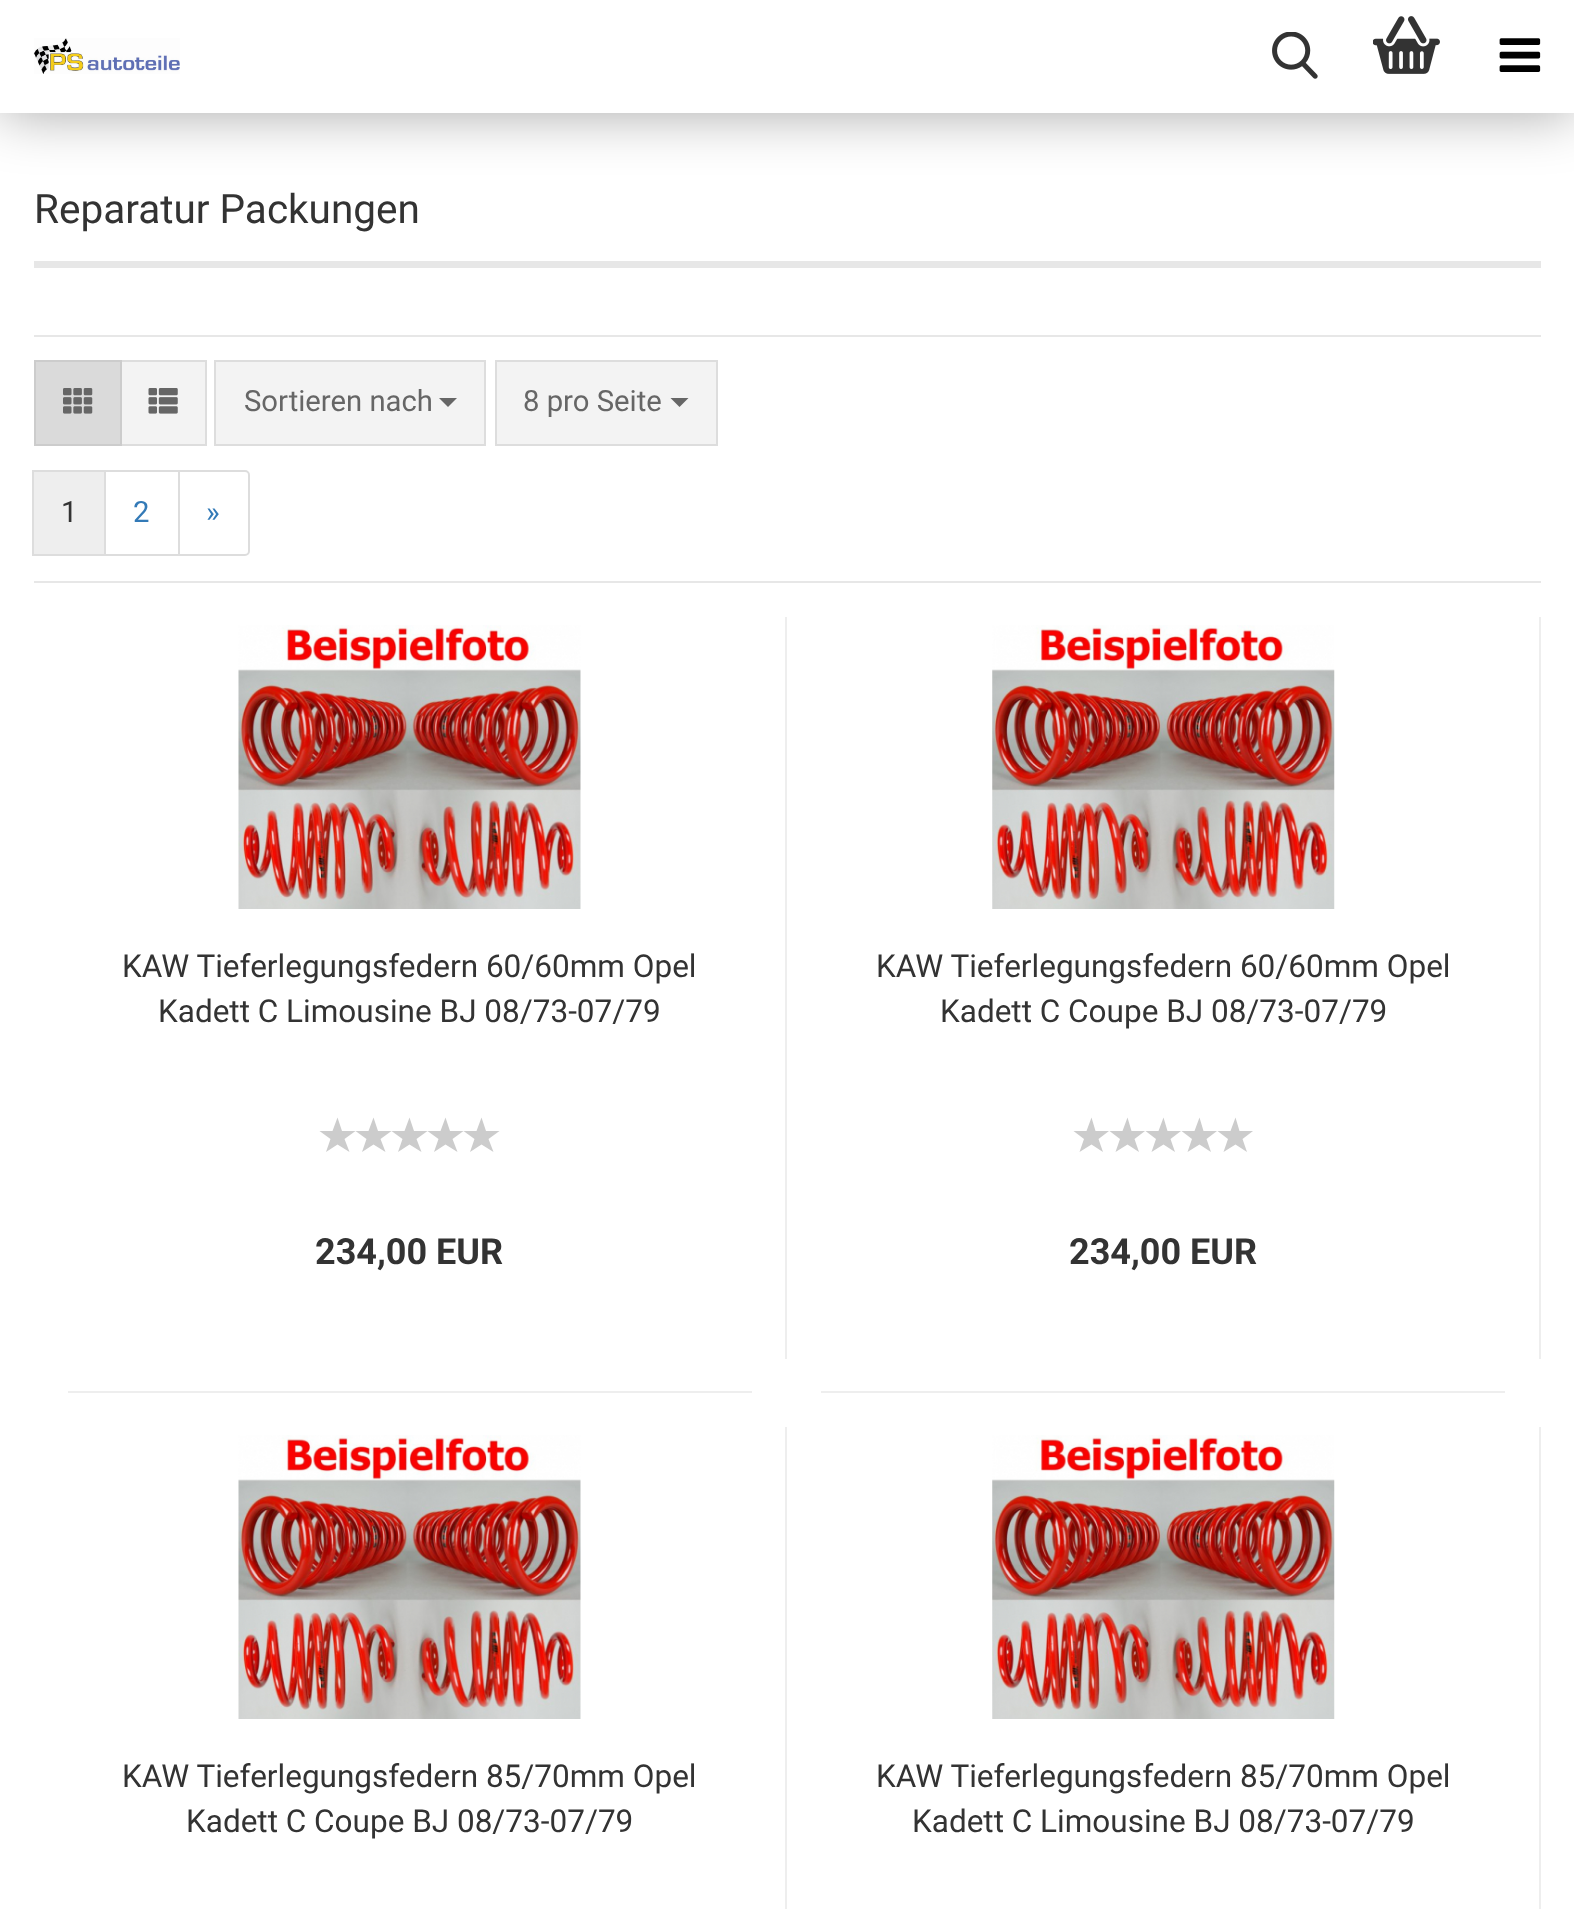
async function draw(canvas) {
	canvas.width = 1574;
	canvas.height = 1909;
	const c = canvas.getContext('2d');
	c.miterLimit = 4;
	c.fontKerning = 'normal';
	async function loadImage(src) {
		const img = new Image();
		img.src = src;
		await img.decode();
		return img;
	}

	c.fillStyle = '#fff';
	c.fillRect(0, 0, 1574, 1909);
	c.fillStyle = '#00000059';
	c.filter = 'blur(28px)';
	c.beginPath();
	c.rect(0, 0, 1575, 113);
	c.fill();
	c.filter = 'none';
	c.fillStyle = '#fff';
	c.fillRect(0, 0, 1574, 113);
	c.drawImage(await loadImage('img1.png'), 33, 38, 147, 36);
	c.drawImage(await loadImage('img2.png'), 1272, 32, 46, 47);
	c.drawImage(await loadImage('img3.png'), 1373, 16, 67, 58);
	c.drawImage(await loadImage('img4.png'), 1499, 38, 42, 34);
	c.fillStyle = '#e7e7e7';
	c.fillRect(34, 261, 1507, 7);
	c.font = '40.5px Roboto';
	c.fillStyle = '#333';
	c.fillText('Reparatur Packungen', 34, 223);
	for (const [x, y, w, h, color] of [
		[34, 335, 1507, 2, '#e7e7e7'],
		[34, 581, 1507, 2, '#e7e7e7'],
		[122, 362, 83, 82, '#f3f3f3'],
	]) {
		c.fillStyle = color;
		c.fillRect(x, y, w, h);
	}
	c.strokeStyle = '#ddd';
	c.lineWidth = 2;
	c.strokeRect(120, 361, 86, 84);
	c.fillStyle = '#dadada';
	c.beginPath();
	c.rect(35, 361, 86, 84);
	c.fill();
	c.strokeStyle = '#ccc';
	c.stroke();
	c.drawImage(await loadImage('img5.png'), 63, 388, 30, 26);
	c.drawImage(await loadImage('img6.png'), 148, 388, 30, 26);
	c.fillStyle = '#f3f3f3';
	c.beginPath();
	c.rect(215, 361, 270, 84);
	c.fill();
	c.strokeStyle = '#ddd';
	c.stroke();
	c.font = '29.25px Roboto';
	c.fillStyle = '#666';
	c.fillText('Sortieren nach', 244, 411);
	c.beginPath();
	c.moveTo(439, 398);
	c.lineTo(457, 398);
	c.lineTo(448, 407);
	c.closePath();
	c.fill();
	c.fillStyle = '#f3f3f3';
	c.beginPath();
	c.rect(496, 361, 221, 84);
	c.fill();
	c.stroke();
	c.fillStyle = '#666';
	c.fillText('8 pro Seite', 523, 411);
	c.beginPath();
	c.moveTo(670.5, 398);
	c.lineTo(688.5, 398);
	c.lineTo(679.5, 407);
	c.closePath();
	c.fill();
	c.fillStyle = '#eee';
	c.beginPath();
	c.rect(33, 471, 72, 84);
	c.fill();
	c.stroke();
	c.fillStyle = '#333';
	c.fillText('1', 61, 522);
	c.strokeRect(105, 471, 74, 84);
	c.fillStyle = '#337ab7';
	c.fillText('2', 133, 522);
	c.fillStyle = '#fff';
	c.beginPath();
	c.roundRect(179, 471, 70, 84, [0, 4, 4, 0]);
	c.fill();
	c.stroke();
	c.fillStyle = '#337ab7';
	c.fillText('»', 206, 522);
	c.fillStyle = '#eee';
	c.fillRect(785, 617, 2, 742);
	c.fillRect(68, 1391, 684, 2);
	c.drawImage(await loadImage('img7.png'), 238, 625, 343, 284);
	c.font = '31.5px Roboto';
	c.fillStyle = '#333';
	c.fillText('KAW Tieferlegungsfedern 60/60mm Opel', 122, 977);
	c.fillText('Kadett C Limousine BJ 08/73-07/79', 158, 1022);
	c.fillStyle = '#ccc';
	c.beginPath();
	c.moveTo(337.5, 1144.5);
	c.lineTo(326, 1152);
	c.lineTo(330.5, 1139);
	c.lineTo(319.5, 1131);
	c.lineTo(332.5, 1131);
	c.lineTo(337.5, 1117.5);
	c.lineTo(342, 1131);
	c.lineTo(355.5, 1131);
	c.lineTo(344.5, 1139);
	c.lineTo(349.5, 1152);
	c.closePath();
	c.fill();
	c.beginPath();
	c.moveTo(373.5, 1144.5);
	c.lineTo(362, 1152);
	c.lineTo(366.5, 1139);
	c.lineTo(355.5, 1131);
	c.lineTo(368.5, 1131);
	c.lineTo(373.5, 1117.5);
	c.lineTo(378, 1131);
	c.lineTo(391.5, 1131);
	c.lineTo(380.5, 1139);
	c.lineTo(385.5, 1152);
	c.closePath();
	c.fill();
	c.beginPath();
	c.moveTo(409.5, 1144.5);
	c.lineTo(398, 1152);
	c.lineTo(402.5, 1139);
	c.lineTo(391.5, 1131);
	c.lineTo(404.5, 1131);
	c.lineTo(409.5, 1117.5);
	c.lineTo(414, 1131);
	c.lineTo(427.5, 1131);
	c.lineTo(416.5, 1139);
	c.lineTo(421.5, 1152);
	c.closePath();
	c.fill();
	c.beginPath();
	c.moveTo(445.5, 1144.5);
	c.lineTo(434, 1152);
	c.lineTo(438.5, 1139);
	c.lineTo(427.5, 1131);
	c.lineTo(440.5, 1131);
	c.lineTo(445.5, 1117.5);
	c.lineTo(450, 1131);
	c.lineTo(463.5, 1131);
	c.lineTo(452.5, 1139);
	c.lineTo(457.5, 1152);
	c.closePath();
	c.fill();
	c.beginPath();
	c.moveTo(481.5, 1144.5);
	c.lineTo(470, 1152);
	c.lineTo(474.5, 1139);
	c.lineTo(463.5, 1131);
	c.lineTo(476.5, 1131);
	c.lineTo(481.5, 1117.5);
	c.lineTo(486, 1131);
	c.lineTo(499.5, 1131);
	c.lineTo(488.5, 1139);
	c.lineTo(493.5, 1152);
	c.closePath();
	c.fill();
	c.font = 'bold 36px Roboto';
	c.fillStyle = '#333';
	c.fillText('234,00 EUR', 315, 1264);
	c.fillStyle = '#eee';
	c.fillRect(1539, 617, 2, 742);
	c.fillRect(821, 1391, 684, 2);
	c.drawImage(await loadImage('img8.png'), 992, 625, 343, 284);
	c.font = '31.5px Roboto';
	c.fillStyle = '#333';
	c.fillText('KAW Tieferlegungsfedern 60/60mm Opel', 876, 977);
	c.fillText('Kadett C Coupe BJ 08/73-07/79', 940, 1022);
	c.fillStyle = '#ccc';
	c.beginPath();
	c.moveTo(1091.5, 1144.5);
	c.lineTo(1079.5, 1152);
	c.lineTo(1084, 1139);
	c.lineTo(1073.5, 1131);
	c.lineTo(1086.5, 1131);
	c.lineTo(1091.5, 1117.5);
	c.lineTo(1095.5, 1131);
	c.lineTo(1109, 1131);
	c.lineTo(1098.5, 1139);
	c.lineTo(1103, 1152);
	c.closePath();
	c.fill();
	c.beginPath();
	c.moveTo(1127.5, 1144.5);
	c.lineTo(1115.5, 1152);
	c.lineTo(1120, 1139);
	c.lineTo(1109.5, 1131);
	c.lineTo(1122.5, 1131);
	c.lineTo(1127.5, 1117.5);
	c.lineTo(1131.5, 1131);
	c.lineTo(1145, 1131);
	c.lineTo(1134.5, 1139);
	c.lineTo(1139, 1152);
	c.closePath();
	c.fill();
	c.beginPath();
	c.moveTo(1163.5, 1144.5);
	c.lineTo(1151.5, 1152);
	c.lineTo(1156, 1139);
	c.lineTo(1145.5, 1131);
	c.lineTo(1158.5, 1131);
	c.lineTo(1163.5, 1117.5);
	c.lineTo(1167.5, 1131);
	c.lineTo(1181, 1131);
	c.lineTo(1170.5, 1139);
	c.lineTo(1175, 1152);
	c.closePath();
	c.fill();
	c.beginPath();
	c.moveTo(1199.5, 1144.5);
	c.lineTo(1187.5, 1152);
	c.lineTo(1192, 1139);
	c.lineTo(1181.5, 1131);
	c.lineTo(1194.5, 1131);
	c.lineTo(1199.5, 1117.5);
	c.lineTo(1203.5, 1131);
	c.lineTo(1217, 1131);
	c.lineTo(1206.5, 1139);
	c.lineTo(1211, 1152);
	c.closePath();
	c.fill();
	c.beginPath();
	c.moveTo(1235.5, 1144.5);
	c.lineTo(1223.5, 1152);
	c.lineTo(1228, 1139);
	c.lineTo(1217.5, 1131);
	c.lineTo(1230.5, 1131);
	c.lineTo(1235.5, 1117.5);
	c.lineTo(1239.5, 1131);
	c.lineTo(1253, 1131);
	c.lineTo(1242.5, 1139);
	c.lineTo(1247, 1152);
	c.closePath();
	c.fill();
	c.font = 'bold 36px Roboto';
	c.fillStyle = '#333';
	c.fillText('234,00 EUR', 1069, 1264);
	c.fillStyle = '#eee';
	c.fillRect(785, 1427, 2, 482);
	c.drawImage(await loadImage('img9.png'), 238, 1435, 343, 284);
	c.font = '31.5px Roboto';
	c.fillStyle = '#333';
	c.fillText('KAW Tieferlegungsfedern 85/70mm Opel', 122, 1787);
	c.fillText('Kadett C Coupe BJ 08/73-07/79', 186, 1832);
	c.fillStyle = '#eee';
	c.fillRect(1539, 1427, 2, 482);
	c.drawImage(await loadImage('img10.png'), 992, 1435, 343, 284);
	c.fillStyle = '#333';
	c.fillText('KAW Tieferlegungsfedern 85/70mm Opel', 876, 1787);
	c.fillText('Kadett C Limousine BJ 08/73-07/79', 912, 1832);
}

draw(document.querySelector('canvas'));
